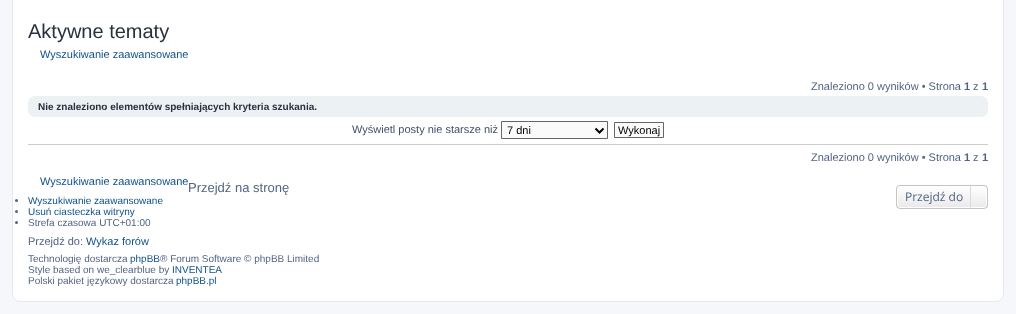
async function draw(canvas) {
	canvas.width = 1016;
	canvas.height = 314;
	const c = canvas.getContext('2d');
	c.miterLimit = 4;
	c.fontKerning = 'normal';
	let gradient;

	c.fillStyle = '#f5f7fa';
	c.fillRect(0, 0, 1016, 314);
	c.fillStyle = '#fff';
	c.beginPath();
	c.roundRect(12.5, -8.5, 991, 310, 7.5);
	c.fill();
	c.strokeStyle = '#e6e9ed';
	c.stroke();
	c.font = '20px Liberation Sans';
	c.fillStyle = '#28313f';
	c.fillText('Aktywne tematy', 28, 38);
	c.font = '11px Liberation Sans';
	c.fillStyle = '#105289';
	c.fillText('Wyszukiwanie zaawansowane', 40, 58);
	c.fillStyle = '#536482';
	c.fillText('Znaleziono 0 wyników • Strona', 811, 90);
	c.font = 'bold 11px Liberation Sans';
	c.fillText('1', 964, 90);
	c.font = '11px Liberation Sans';
	c.fillText('z', 973, 90);
	c.font = 'bold 11px Liberation Sans';
	c.fillText('1', 982, 90);
	c.fillStyle = '#ecf1f3';
	c.beginPath();
	c.roundRect(28, 96, 960, 21, 7);
	c.fill();
	c.font = 'bold 10px Liberation Sans';
	c.fillStyle = '#28313f';
	c.fillText('Nie znaleziono elementów spełniających kryteria szukania.', 38, 110);
	c.font = '11px Liberation Sans';
	c.fillStyle = '#425067';
	c.fillText('Wyświetl posty nie starsze niż', 352, 133);
	c.fillStyle = '#fafafa';
	c.beginPath();
	c.rect(501.5, 121.5, 106, 17);
	c.fill();
	c.strokeStyle = '#666';
	c.stroke();
	c.beginPath();
	c.moveTo(595.5, 128.5);
	c.lineTo(599.5, 132.5);
	c.lineTo(603.5, 128.5);
	c.strokeStyle = '#000';
	c.lineWidth = 2;
	c.stroke();
	c.fillStyle = '#000';
	c.fillText('7 dni', 507, 134);
	c.fillStyle = '#fafafa';
	c.beginPath();
	c.rect(614.5, 122.5, 49, 15);
	c.fill();
	c.strokeStyle = '#666';
	c.lineWidth = 1;
	c.stroke();
	c.fillStyle = '#000';
	c.fillText('Wykonaj', 618, 134);
	c.fillStyle = '#ccc';
	c.fillRect(28, 144, 960, 1);
	c.fillStyle = '#536482';
	c.fillText('Znaleziono 0 wyników • Strona', 811, 161);
	c.font = 'bold 11px Liberation Sans';
	c.fillText('1', 964, 161);
	c.font = '11px Liberation Sans';
	c.fillText('z', 973, 161);
	c.font = 'bold 11px Liberation Sans';
	c.fillText('1', 982, 161);
	c.font = '11px Liberation Sans';
	c.fillStyle = '#105289';
	c.fillText('Wyszukiwanie zaawansowane', 40, 185);
	c.save();
	c.beginPath();
	c.roundRect(896, 185, 92, 24, 4);
	c.clip();
	gradient = c.createLinearGradient(942, 186, 942, 208);
	gradient.addColorStop(0, '#fff');
	gradient.addColorStop(1, '#e9e9e9');
	c.fillStyle = gradient;
	c.fillRect(896, 186, 92, 22);
	c.restore();
	c.beginPath();
	c.roundRect(897.5, 186.5, 89, 21, 2.5);
	c.strokeStyle = '#fff';
	c.stroke();
	c.beginPath();
	c.roundRect(896.5, 185.5, 91, 23, 3.5);
	c.strokeStyle = '#c7c3bf';
	c.stroke();
	c.font = '12px Open Sans';
	c.fillStyle = '#536482';
	c.fillText('Przejdź do', 905, 201);
	c.fillStyle = '#dadada';
	c.fillRect(970, 186, 1, 22);
	c.font = '13px Liberation Sans';
	c.fillStyle = '#536482';
	c.fillText('Przejdź na stronę', 188, 192);
	c.beginPath();
	c.arc(16.5, 200.5, 1.5, 0, 2 * Math.PI);
	c.fill();
	c.font = '10px Liberation Sans';
	c.fillStyle = '#105289';
	c.fillText('Wyszukiwanie zaawansowane', 28, 204);
	c.fillStyle = '#536482';
	c.beginPath();
	c.arc(16.5, 211.5, 1.5, 0, 2 * Math.PI);
	c.fill();
	c.fillStyle = '#105289';
	c.fillText('Usuń ciasteczka witryny', 28, 215);
	c.fillStyle = '#536482';
	c.beginPath();
	c.arc(16.5, 222.5, 1.5, 0, 2 * Math.PI);
	c.fill();
	c.fillText('Strefa czasowa UTC+01:00', 28, 226);
	c.font = '11px Liberation Sans';
	c.fillText('Przejdź do:', 28, 245);
	c.fillStyle = '#105289';
	c.fillText('Wykaz forów', 86, 245);
	c.font = '10px Liberation Sans';
	c.fillStyle = '#536482';
	c.fillText('Technologię dostarcza', 28, 262);
	c.fillStyle = '#105289';
	c.fillText('phpBB', 130, 262);
	c.fillStyle = '#536482';
	c.fillText('® Forum Software © phpBB Limited', 160, 262);
	c.fillText('Style based on we_clearblue by', 28, 273);
	c.fillStyle = '#105289';
	c.fillText('INVENTEA', 172, 273);
	c.fillStyle = '#536482';
	c.fillText('Polski pakiet językowy dostarcza', 28, 284);
	c.fillStyle = '#105289';
	c.fillText('phpBB.pl', 176, 284);
}

draw(document.querySelector('canvas'));
